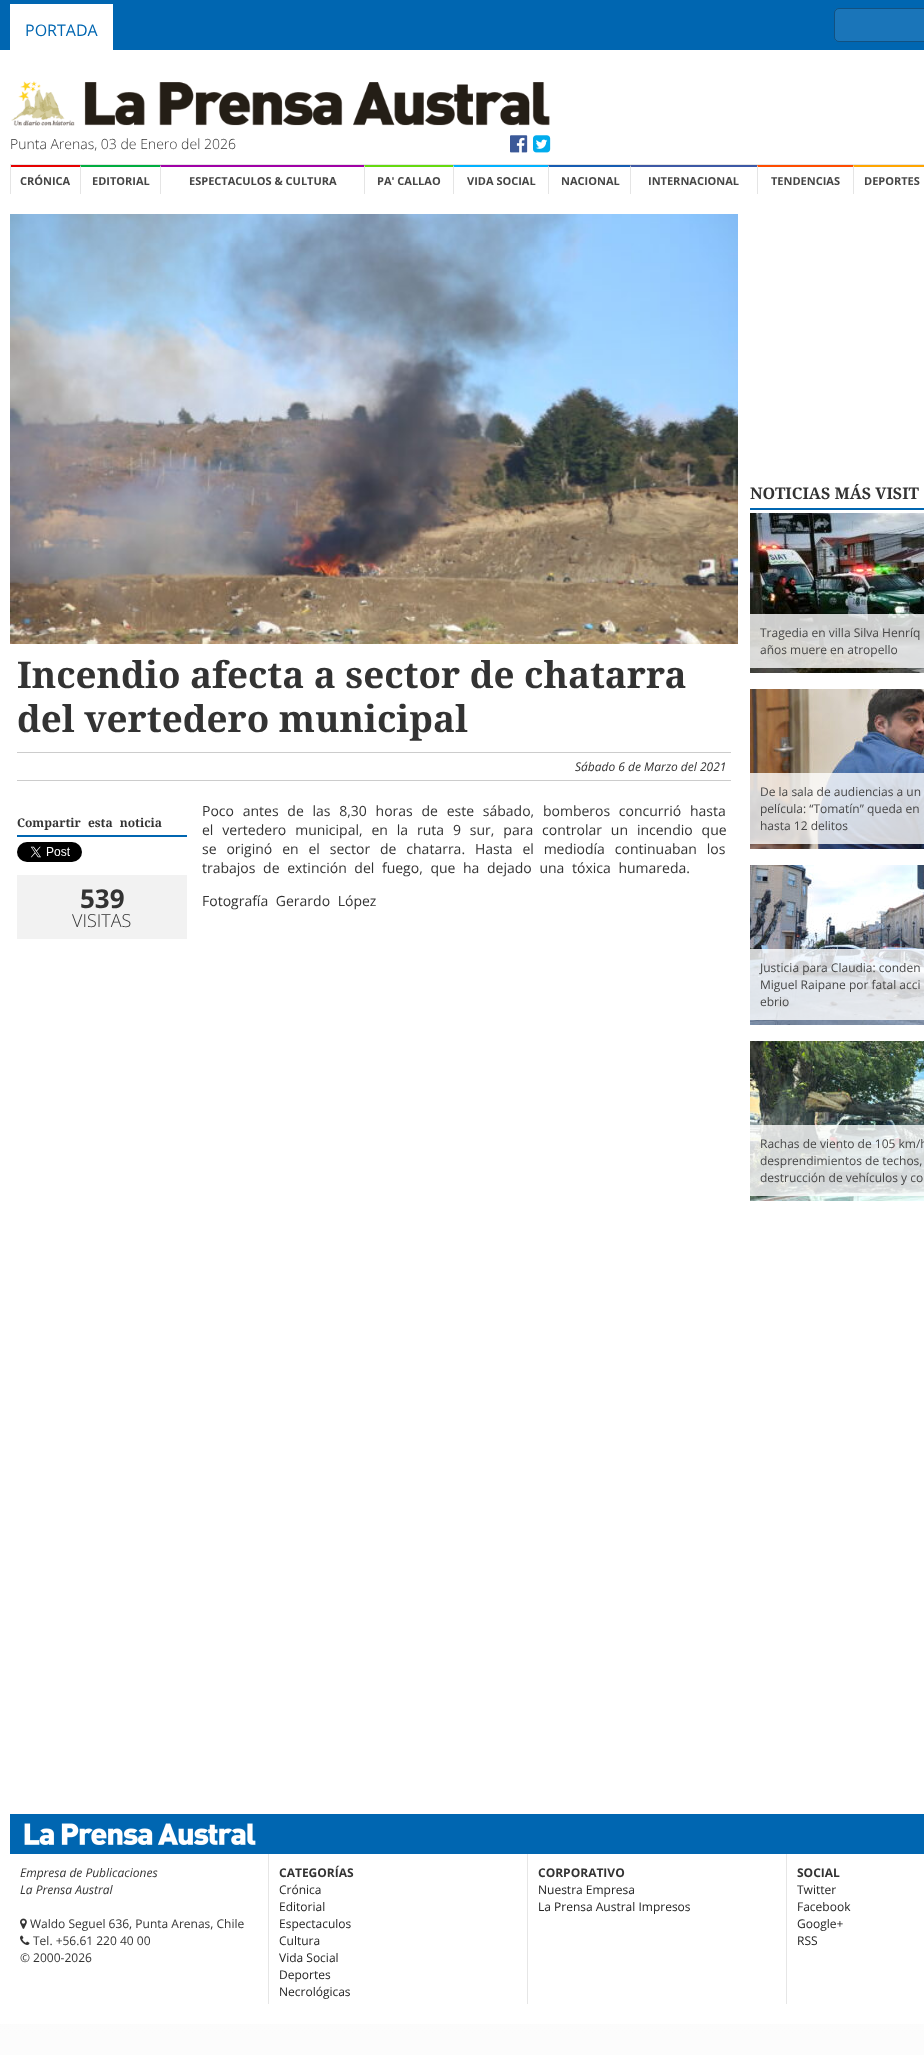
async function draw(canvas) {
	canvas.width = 924;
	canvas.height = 2055;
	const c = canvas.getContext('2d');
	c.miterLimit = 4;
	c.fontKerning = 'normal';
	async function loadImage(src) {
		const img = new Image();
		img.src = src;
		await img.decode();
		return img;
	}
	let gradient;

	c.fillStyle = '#fff';
	c.fillRect(0, 0, 924, 2055);
	gradient = c.createLinearGradient(462, 0, 462, 2055);
	gradient.addColorStop(0, '#c4c4c4');
	gradient.addColorStop(0.99, '#fcfcfc');
	c.fillStyle = gradient;
	c.fillRect(0, 2024, 924, 31);
	c.fillStyle = '#0066b1';
	c.fillRect(0, 0, 924, 50);
	c.fillStyle = '#fff';
	c.fillRect(10, 4, 103, 46);
	c.font = '16px Open Sans';
	c.fillStyle = '#0066b1';
	c.fillText('PORTADA', 25, 36);
	c.fillStyle = '#1a75b9';
	c.beginPath();
	c.roundRect(834, 8, 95, 34, 5);
	c.fill();
	c.beginPath();
	c.roundRect(834.5, 8.5, 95, 33, 4.5);
	c.strokeStyle = '#0000004d';
	c.stroke();
	c.drawImage(await loadImage('img1.png'), 11, 81, 539, 45);
	c.font = '300 14px Open Sans';
	c.fillStyle = '#333';
	c.fillText('Punta Arenas, 03 de Enero del 2026', 10, 149);
	c.drawImage(await loadImage('img2.png'), 510, 135, 18, 18);
	c.drawImage(await loadImage('img3.png'), 533, 135, 18, 18);
	c.fillStyle = '#e6e6e6';
	c.beginPath();
	c.moveTo(10, 164);
	c.lineTo(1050, 164);
	c.lineTo(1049, 165);
	c.lineTo(11, 165);
	c.closePath();
	c.fill();
	c.fillStyle = '#0000001a';
	c.beginPath();
	c.moveTo(10, 194);
	c.lineTo(10, 164);
	c.lineTo(11, 165);
	c.lineTo(11, 194);
	c.closePath();
	c.fill();
	c.fillStyle = '#e70000';
	c.fillRect(11, 165, 69, 2);
	c.font = 'bold 11px Open Sans';
	c.fillStyle = '#464646';
	c.fillText('CRÓNICA', 20, 185);
	c.fillStyle = '#00ad40';
	c.beginPath();
	c.moveTo(80, 165);
	c.lineTo(160, 165);
	c.lineTo(160, 167);
	c.lineTo(81, 167);
	c.closePath();
	c.fill();
	c.fillStyle = '#0000001a';
	c.beginPath();
	c.moveTo(80, 194);
	c.lineTo(80, 165);
	c.lineTo(81, 167);
	c.lineTo(81, 194);
	c.closePath();
	c.fill();
	c.fillStyle = '#464646';
	c.fillText('EDITORIAL', 92, 185);
	c.fillStyle = '#a000a7';
	c.beginPath();
	c.moveTo(160, 165);
	c.lineTo(364, 165);
	c.lineTo(364, 167);
	c.lineTo(161, 167);
	c.closePath();
	c.fill();
	c.fillStyle = '#0000001a';
	c.beginPath();
	c.moveTo(160, 194);
	c.lineTo(160, 165);
	c.lineTo(161, 167);
	c.lineTo(161, 194);
	c.closePath();
	c.fill();
	c.fillStyle = '#464646';
	c.fillText('ESPECTACULOS & CULTURA', 189, 185);
	c.fillStyle = '#65da0f';
	c.beginPath();
	c.moveTo(364, 165);
	c.lineTo(453, 165);
	c.lineTo(453, 167);
	c.lineTo(365, 167);
	c.closePath();
	c.fill();
	c.fillStyle = '#0000001a';
	c.beginPath();
	c.moveTo(364, 194);
	c.lineTo(364, 165);
	c.lineTo(365, 167);
	c.lineTo(365, 194);
	c.closePath();
	c.fill();
	c.fillStyle = '#464646';
	c.fillText('PA\' CALLAO', 377, 185);
	c.fillStyle = '#00b2ff';
	c.beginPath();
	c.moveTo(453, 165);
	c.lineTo(548, 165);
	c.lineTo(548, 167);
	c.lineTo(454, 167);
	c.closePath();
	c.fill();
	c.fillStyle = '#0000001a';
	c.beginPath();
	c.moveTo(453, 194);
	c.lineTo(453, 165);
	c.lineTo(454, 167);
	c.lineTo(454, 194);
	c.closePath();
	c.fill();
	c.fillStyle = '#464646';
	c.fillText('VIDA SOCIAL', 467, 185);
	c.fillStyle = '#165cb2';
	c.beginPath();
	c.moveTo(548, 165);
	c.lineTo(630, 165);
	c.lineTo(630, 167);
	c.lineTo(549, 167);
	c.closePath();
	c.fill();
	c.fillStyle = '#0000001a';
	c.beginPath();
	c.moveTo(548, 194);
	c.lineTo(548, 165);
	c.lineTo(549, 167);
	c.lineTo(549, 194);
	c.closePath();
	c.fill();
	c.fillStyle = '#464646';
	c.fillText('NACIONAL', 561, 185);
	c.fillStyle = '#3d58a5';
	c.beginPath();
	c.moveTo(630, 165);
	c.lineTo(757, 165);
	c.lineTo(757, 167);
	c.lineTo(631, 167);
	c.closePath();
	c.fill();
	c.fillStyle = '#0000001a';
	c.beginPath();
	c.moveTo(630, 194);
	c.lineTo(630, 165);
	c.lineTo(631, 167);
	c.lineTo(631, 194);
	c.closePath();
	c.fill();
	c.fillStyle = '#464646';
	c.fillText('INTERNACIONAL', 648, 185);
	c.fillStyle = '#ff4c00';
	c.beginPath();
	c.moveTo(757, 165);
	c.lineTo(853, 165);
	c.lineTo(853, 167);
	c.lineTo(758, 167);
	c.closePath();
	c.fill();
	c.fillStyle = '#0000001a';
	c.beginPath();
	c.moveTo(757, 194);
	c.lineTo(757, 165);
	c.lineTo(758, 167);
	c.lineTo(758, 194);
	c.closePath();
	c.fill();
	c.fillStyle = '#464646';
	c.fillText('TENDENCIAS', 771, 185);
	c.fillStyle = '#ffa500';
	c.beginPath();
	c.moveTo(853, 165);
	c.lineTo(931, 165);
	c.lineTo(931, 167);
	c.lineTo(854, 167);
	c.closePath();
	c.fill();
	c.fillStyle = '#0000001a';
	c.beginPath();
	c.moveTo(853, 194);
	c.lineTo(853, 165);
	c.lineTo(854, 167);
	c.lineTo(854, 194);
	c.closePath();
	c.fill();
	c.fillStyle = '#464646';
	c.fillText('DEPORTES', 864, 185);
	c.drawImage(await loadImage('img4.png'), 10, 214, 728, 430);
	c.font = 'bold 36.75px Droid Serif';
	c.fillStyle = '#333';
	c.fillText('Incendio afecta a sector de chatarra', 17, 688);
	c.fillText('del vertedero municipal', 17, 732);
	c.fillStyle = '#ccc';
	c.fillRect(17, 752, 714, 1);
	c.fillRect(17, 780, 714, 1);
	c.font = 'italic 12px Open Sans';
	c.fillStyle = '#333';
	c.fillText('Sábado 6 de Marzo del 2021', 575, 771);
	c.fillStyle = '#0066b1';
	c.fillRect(17, 835, 170, 2);
	c.wordSpacing = '4px';
	c.font = 'bold 12px Droid Serif';
	c.fillStyle = '#333';
	c.fillText('Compartir esta noticia', 17, 827);
	c.drawImage(await loadImage('img5.png'), 17, 842, 65, 20);
	c.fillStyle = '#f2f2f2';
	c.fillRect(17, 875, 170, 64);
	c.wordSpacing = '0px';
	c.font = 'bold 26px Open Sans';
	c.fillStyle = '#333';
	c.fillText('539', 80, 908);
	c.font = '300 18px Open Sans';
	c.fillText('VISITAS', 72, 927);
	c.wordSpacing = '5.1px';
	c.font = '14px Open Sans';
	c.fillText('Poco antes de las 8,30 horas de este sábado, bomberos concurrió hasta', 202, 816);
	c.wordSpacing = '5.25px';
	c.fillText('el vertedero municipal, en la ruta 9 sur, para controlar un incendio que', 202, 835);
	c.wordSpacing = '6.25px';
	c.fillText('se originó en el sector de chatarra. Hasta el mediodía continuaban los', 202, 854);
	c.wordSpacing = '4px';
	c.fillText('trabajos de extinción del fuego, que ha dejado una tóxica humareda.', 202, 873);
	c.fillText('Fotografía Gerardo López', 202, 906);
	c.fillStyle = '#0066b1';
	c.fillRect(750, 508, 174, 2);
	c.wordSpacing = '0px';
	c.font = 'bold 16px Droid Serif';
	c.fillStyle = '#333';
	c.fillText('NOTICIAS MÁS VISIT', 750, 499);
	c.drawImage(await loadImage('img6.png'), 750, 513, 174, 160);
	c.fillStyle = '#ffffffcc';
	c.fillRect(750, 614, 174, 54);
	c.font = '12px Open Sans';
	c.fillStyle = '#464646';
	c.fillText('Tragedia en villa Silva Henríq', 760, 637);
	c.fillText('años muere en atropello', 760, 654);
	c.drawImage(await loadImage('img7.png'), 750, 689, 174, 160);
	c.fillStyle = '#ffffffcc';
	c.fillRect(750, 773, 174, 71);
	c.fillStyle = '#464646';
	for (const [text, x, y] of [
		['De la sala de audiencias a un', 760, 796],
		['película: “Tomatín” queda en', 760, 813],
		['hasta 12 delitos', 760, 830],
	]) {
		c.fillText(text, x, y);
	}
	c.drawImage(await loadImage('img8.png'), 750, 865, 174, 160);
	c.fillStyle = '#ffffffcc';
	c.fillRect(750, 949, 174, 71);
	c.fillStyle = '#464646';
	for (const [text, x, y] of [
		['Justicia para Claudia: conden', 760, 972],
		['Miguel Raipane por fatal acci', 760, 989],
		['ebrio', 760, 1006],
	]) {
		c.fillText(text, x, y);
	}
	c.drawImage(await loadImage('img9.png'), 750, 1041, 174, 160);
	c.fillStyle = '#ffffffcc';
	c.fillRect(750, 1125, 174, 71);
	c.fillStyle = '#464646';
	for (const [text, x, y] of [
		['Rachas de viento de 105 km/h', 760, 1148],
		['desprendimientos de techos,', 760, 1165],
		['destrucción de vehículos y co', 760, 1182],
	]) {
		c.fillText(text, x, y);
	}
	c.fillStyle = '#0066b1';
	c.fillRect(10, 1814, 914, 40);
	c.drawImage(await loadImage('img10.png'), 24, 1823, 232, 22);
	c.fillStyle = '#e6e6e6';
	c.fillRect(268, 1854, 1, 150);
	c.font = 'italic 12px Open Sans';
	c.fillStyle = '#333';
	c.fillText('Empresa de Publicaciones', 20, 1877);
	c.fillText('La Prensa Austral', 20, 1894);
	c.drawImage(await loadImage('img11.png'), 20, 1918, 7, 11);
	c.font = '12px Open Sans';
	c.fillText('Waldo Seguel 636, Punta Arenas, Chile', 30, 1928);
	c.drawImage(await loadImage('img12.png'), 20, 1935, 10, 10);
	c.fillText('Tel. +56.61 220 40 00', 33, 1945);
	c.fillText('© 2000-2026', 20, 1962);
	c.fillStyle = '#e6e6e6';
	c.fillRect(527, 1854, 1, 150);
	c.font = 'bold 12px Open Sans';
	c.fillStyle = '#333';
	c.fillText('CATEGORÍAS', 279, 1877);
	c.font = '12px Open Sans';
	c.fillStyle = '#222';
	for (const [text, x, y] of [
		['Crónica', 279, 1894],
		['Editorial', 279, 1911],
		['Espectaculos', 279, 1928],
		['Cultura', 279, 1945],
		['Vida Social', 279, 1962],
		['Deportes', 279, 1979],
		['Necrológicas', 279, 1996],
	]) {
		c.fillText(text, x, y);
	}
	c.fillStyle = '#e6e6e6';
	c.fillRect(786, 1854, 1, 150);
	c.font = 'bold 12px Open Sans';
	c.fillStyle = '#333';
	c.fillText('CORPORATIVO', 538, 1877);
	c.font = '12px Open Sans';
	c.fillStyle = '#222';
	c.fillText('Nuestra Empresa', 538, 1894);
	c.fillText('La Prensa Austral Impresos', 538, 1911);
	c.font = 'bold 12px Open Sans';
	c.fillStyle = '#333';
	c.fillText('SOCIAL', 797, 1877);
	c.font = '12px Open Sans';
	c.fillStyle = '#222';
	for (const [text, x, y] of [
		['Twitter', 797, 1894],
		['Facebook', 797, 1911],
		['Google+', 797, 1928],
		['RSS', 797, 1945],
	]) {
		c.fillText(text, x, y);
	}
}

draw(document.querySelector('canvas'));
